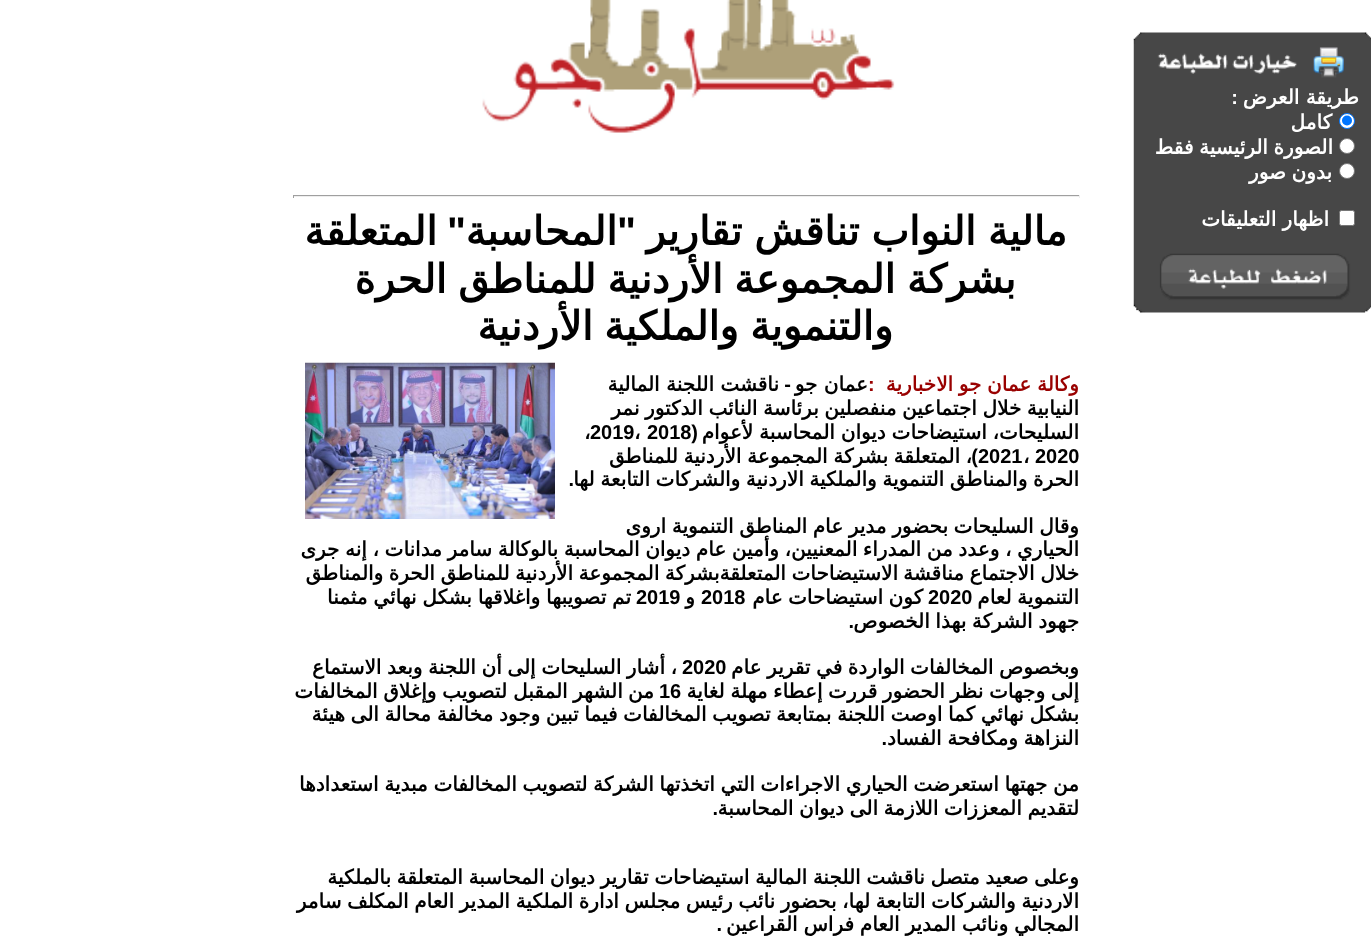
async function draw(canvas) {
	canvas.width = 1371;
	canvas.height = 947;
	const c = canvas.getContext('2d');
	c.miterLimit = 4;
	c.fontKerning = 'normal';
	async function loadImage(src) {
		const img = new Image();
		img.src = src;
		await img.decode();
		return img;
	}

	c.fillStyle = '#fff';
	c.fillRect(0, 0, 1371, 947);
	c.drawImage(await loadImage('img1.png'), 1133, 32, 238, 281);
	c.direction = 'rtl';
	c.font = 'bold 20px DejaVu Sans';
	c.fillText('طريقة العرض', 1359, 104);
	c.font = 'bold 20px Liberation Sans';
	c.fillText(':', 1238, 104);
	c.beginPath();
	c.arc(1347, 121, 7.5, 0, 2 * Math.PI);
	c.fill();
	c.strokeStyle = '#0075ff';
	c.stroke();
	c.fillStyle = '#0075ff';
	c.beginPath();
	c.arc(1347, 120.5, 5, 0, 2 * Math.PI);
	c.fill();
	c.font = 'bold 20px DejaVu Sans';
	c.fillStyle = '#fff';
	c.fillText('كامل', 1332, 129);
	c.beginPath();
	c.arc(1347, 146, 7.5, 0, 2 * Math.PI);
	c.fill();
	c.strokeStyle = '#767676';
	c.stroke();
	c.wordSpacing = '-0.75px';
	c.fillText('الصورة الرئيسية فقط', 1333, 154);
	c.beginPath();
	c.arc(1347, 171, 7.5, 0, 2 * Math.PI);
	c.fill();
	c.stroke();
	c.fillText('بدون صور', 1332, 179);
	c.beginPath();
	c.roundRect(1339.5, 210.5, 15, 15, 2);
	c.fill();
	c.stroke();
	c.wordSpacing = '0px';
	c.fillText('اظهار التعليقات', 1329, 226);
	c.drawImage(await loadImage('img2.png'), 482, 0, 413, 133);
	for (const [x, y, w, h, color] of [
		[293, 195, 787, 1, '#9f9f9f'],
		[1079, 195, 1, 3, '#eee'],
		[293, 196, 787, 1, '#eee'],
		[293, 195, 1, 3, '#9f9f9f'],
	]) {
		c.fillStyle = color;
		c.fillRect(x, y, w, h);
	}
	c.wordSpacing = '-1px';
	c.font = 'bold 40px DejaVu Sans';
	c.fillStyle = '#000';
	c.fillText('مالية النواب تناقش تقارير', 1067, 245);
	c.wordSpacing = '0px';
	c.font = 'bold 40px Liberation Sans';
	c.fillText('"', 636, 245);
	c.font = 'bold 40px DejaVu Sans';
	c.fillText('المحاسبة', 617, 245);
	c.font = 'bold 40px Liberation Sans';
	c.fillText('"', 466, 245);
	c.font = 'bold 40px DejaVu Sans';
	c.fillText('المتعلقة', 437, 245);
	c.wordSpacing = '-1.5px';
	c.fillText('بشركة المجموعة الأردنية للمناطق الحرة', 1016, 293);
	c.fillText('والتنموية والملكية الأردنية', 893, 340);
	c.drawImage(await loadImage('img3.png'), 305, 362, 250, 157);
	c.wordSpacing = '-0.75px';
	c.font = 'bold 20px DejaVu Sans';
	c.fillStyle = '#990100';
	c.fillText('وكالة عمان جو الاخبارية', 1079, 391);
	c.wordSpacing = '0px';
	c.direction = 'ltr';
	c.font = 'bold 20px Liberation Sans';
	c.fillText(':', 868, 391);
	c.direction = 'rtl';
	c.font = 'bold 20px DejaVu Sans';
	c.fillStyle = '#000';
	c.fillText('عمان جو', 868, 391);
	c.font = 'bold 20px Liberation Sans';
	c.fillText('-', 791, 391);
	c.font = 'bold 20px DejaVu Sans';
	c.fillText('ناقشت اللجنة المالية', 779, 391);
	c.wordSpacing = '-0.75px';
	c.fillText('النيابية خلال اجتماعين منفصلين برئاسة النائب الدكتور نمر', 1079, 415);
	c.wordSpacing = '-0.5px';
	c.fillText('السليحات، استيضاحات ديوان المحاسبة لأعوام', 1079, 439);
	c.wordSpacing = '0px';
	c.font = 'bold 20px Liberation Sans';
	c.fillText('(', 698, 439);
	c.direction = 'ltr';
	c.fillText('2018', 647, 439);
	c.font = 'bold 20px DejaVu Sans';
	c.fillText('،', 634, 439);
	c.font = 'bold 20px Liberation Sans';
	c.fillText('2019', 590, 439);
	c.font = 'bold 20px DejaVu Sans';
	c.fillText('،', 584, 439);
	c.wordSpacing = '-0.75px';
	c.direction = 'rtl';
	c.fillText('، المتعلقة بشركة المجموعة الأردنية للمناطق', 972, 463);
	c.wordSpacing = '0px';
	c.direction = 'ltr';
	c.font = 'bold 20px Liberation Sans';
	c.fillText('2020', 1035, 463);
	c.font = 'bold 20px DejaVu Sans';
	c.fillText('،', 1023, 463);
	c.font = 'bold 20px Liberation Sans';
	c.fillText('2021', 978, 463);
	c.direction = 'rtl';
	c.fillText(')', 978, 463);
	c.wordSpacing = '-0.75px';
	c.font = 'bold 20px DejaVu Sans';
	c.fillText('الحرة والمناطق التنموية والملكية الاردنية والشركات التابعة لها', 1079, 486);
	c.wordSpacing = '0px';
	c.font = 'bold 20px Liberation Sans';
	c.fillText('.', 574, 486);
	c.wordSpacing = '-0.75px';
	c.font = 'bold 20px DejaVu Sans';
	for (const [text, x, y] of [
		['وقال السليحات بحضور مدير عام المناطق التنموية اروى', 1079, 533],
		['الحياري ، وعدد من المدراء المعنيين، وأمين عام ديوان المحاسبة بالوكالة سامر مدانات ، إنه جرى', 1079, 556],
		['خلال الاجتماع مناقشة', 1079, 580],
		['الاستيضاحات المتعلقةبشركة المجموعة الأردنية للمناطق الحرة والمناطق', 898, 580],
		['التنموية لعام', 1079, 604],
	]) {
		c.fillText(text, x, y);
	}
	c.wordSpacing = '0px';
	c.direction = 'ltr';
	c.font = 'bold 20px Liberation Sans';
	c.fillText('2020', 928, 604);
	c.wordSpacing = '-1px';
	c.direction = 'rtl';
	c.font = 'bold 20px DejaVu Sans';
	c.fillText('كون استيضاحات عام', 923, 604);
	c.wordSpacing = '0px';
	c.direction = 'ltr';
	c.font = 'bold 20px Liberation Sans';
	c.fillText('2018', 701, 604);
	c.direction = 'rtl';
	c.font = 'bold 20px DejaVu Sans';
	c.fillText('و', 695, 604);
	c.direction = 'ltr';
	c.font = 'bold 20px Liberation Sans';
	c.fillText('2019', 636, 604);
	c.wordSpacing = '-0.5px';
	c.direction = 'rtl';
	c.font = 'bold 20px DejaVu Sans';
	c.fillText('تم تصويبها واغلاقها بشكل نهائي مثمنا', 631, 604);
	c.wordSpacing = '-0.75px';
	c.fillText('جهود الشركة بهذا الخصوص', 1079, 628);
	c.wordSpacing = '0px';
	c.font = 'bold 20px Liberation Sans';
	c.fillText('.', 854, 628);
	c.wordSpacing = '-0.75px';
	c.font = 'bold 20px DejaVu Sans';
	c.fillText('وبخصوص المخالفات الواردة في تقرير عام', 1079, 674);
	c.wordSpacing = '0px';
	c.direction = 'ltr';
	c.font = 'bold 20px Liberation Sans';
	c.fillText('2020', 682, 674);
	c.wordSpacing = '-0.75px';
	c.direction = 'rtl';
	c.font = 'bold 20px DejaVu Sans';
	c.fillText('، أشار السليحات إلى أن اللجنة وبعد الاستماع', 677, 674);
	c.fillText('إلى وجهات نظر الحضور قررت إعطاء مهلة لغاية', 1079, 698);
	c.wordSpacing = '0px';
	c.direction = 'ltr';
	c.font = 'bold 20px Liberation Sans';
	c.fillText('16', 659, 698);
	c.wordSpacing = '-1px';
	c.direction = 'rtl';
	c.font = 'bold 20px DejaVu Sans';
	c.fillText('من الشهر المقبل', 654, 698);
	c.wordSpacing = '-0.75px';
	for (const [text, x, y] of [
		['لتصويب وإغلاق المخالفات', 507, 698],
		['بشكل نهائي كما اوصت اللجنة بمتابعة تصويب المخالفات فيما تبين وجود مخالفة محالة الى هيئة', 1079, 721],
		['النزاهة ومكافحة الفساد', 1079, 745],
	]) {
		c.fillText(text, x, y);
	}
	c.wordSpacing = '0px';
	c.font = 'bold 20px Liberation Sans';
	c.fillText('.', 887, 745);
	c.wordSpacing = '-0.75px';
	c.font = 'bold 20px DejaVu Sans';
	c.fillText('من جهتها استعرضت الحياري الاجراءات التي اتخذتها الشركة لتصويب المخالفات مبدية استعدادها', 1079, 791);
	c.fillText('لتقديم المعززات اللازمة الى ديوان المحاسبة', 1079, 815);
	c.wordSpacing = '0px';
	c.font = 'bold 20px Liberation Sans';
	c.fillText('.', 718, 815);
	c.wordSpacing = '-0.75px';
	c.font = 'bold 20px DejaVu Sans';
	c.fillText('وعلى صعيد متصل ناقشت اللجنة المالية استيضاحات تقارير ديوان المحاسبة المتعلقة بالملكية', 1079, 884);
	c.fillText('الاردنية والشركات التابعة لها، بحضور نائب رئيس مجلس ادارة الملكية المدير العام المكلف سامر', 1079, 908);
	c.wordSpacing = '-0.5px';
	c.fillText('المجالي ونائب المدير العام فراس القراعين', 1079, 931);
	c.wordSpacing = '0px';
	c.font = 'bold 20px Liberation Sans';
	c.fillText('.', 722, 931);
}

draw(document.querySelector('canvas'));
